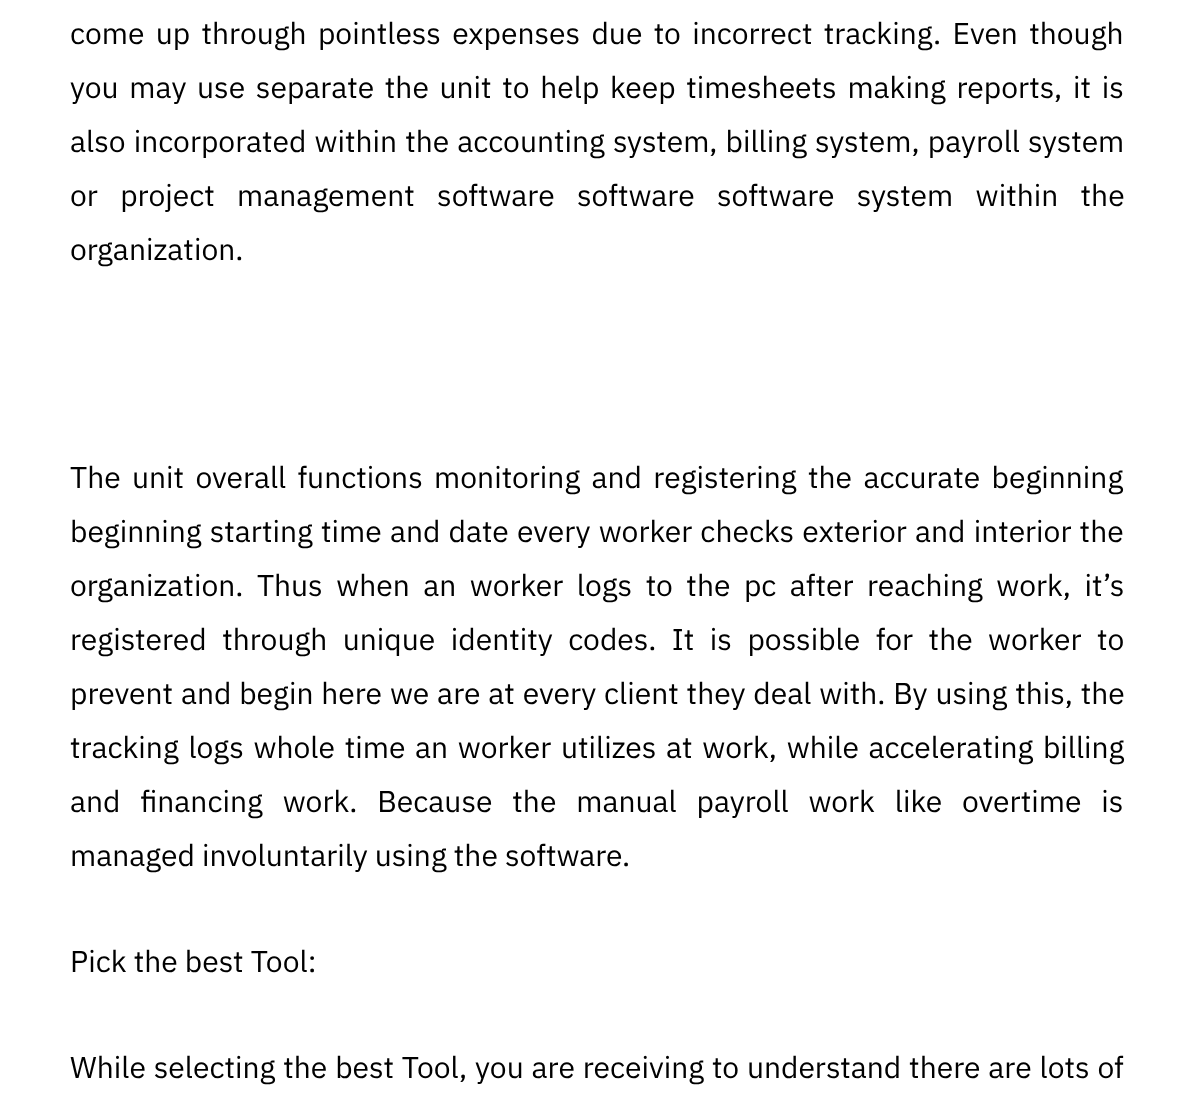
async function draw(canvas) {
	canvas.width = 1194;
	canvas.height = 1093;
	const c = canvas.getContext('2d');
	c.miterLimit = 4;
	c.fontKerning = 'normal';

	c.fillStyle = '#fff';
	c.fillRect(0, 0, 1194, 1093);
	c.wordSpacing = '4.25px';
	c.font = '30px IBM Plex Sans';
	c.fillStyle = '#000';
	c.fillText('come up through pointless expenses due to incorrect tracking. Even though', 70, 44);
	c.wordSpacing = '3.6px';
	c.fillText('you may use separate the unit to help keep timesheets making reports, it is', 70, 98);
	c.wordSpacing = '1px';
	c.fillText('also incorporated within the accounting system, billing system, payroll system', 70, 152);
	c.wordSpacing = '15.25px';
	c.fillText('or project management software software software system within the', 70, 206);
	c.wordSpacing = '0px';
	c.fillText('organization.', 70, 260);
	c.wordSpacing = '4.25px';
	c.fillText('The unit overall functions monitoring and registering the accurate beginning', 70, 488);
	c.wordSpacing = '1.1px';
	c.fillText('beginning starting time and date every worker checks exterior and interior the', 70, 542);
	c.wordSpacing = '6.4px';
	c.fillText('organization. Thus when an worker logs to the pc after reaching work, it’s', 70, 596);
	c.wordSpacing = '8.4px';
	c.fillText('registered through unique identity codes. It is possible for the worker to', 70, 650);
	c.wordSpacing = '0.75px';
	c.fillText('prevent and begin here we are at every client they deal with. By using this, the', 70, 704);
	c.wordSpacing = '2.6px';
	c.fillText('tracking logs whole time an worker utilizes at work, while accelerating billing', 70, 758);
	c.wordSpacing = '12.75px';
	c.fillText('and financing work. Because the manual payroll work like overtime is', 70, 812);
	c.wordSpacing = '0px';
	c.fillText('managed involuntarily using the software.', 70, 866);
	c.fillText('Pick the best Tool:', 70, 972);
	c.wordSpacing = '0.75px';
	c.fillText('While selecting the best Tool, you are receiving to understand there are lots of', 70, 1078);
}

draw(document.querySelector('canvas'));
